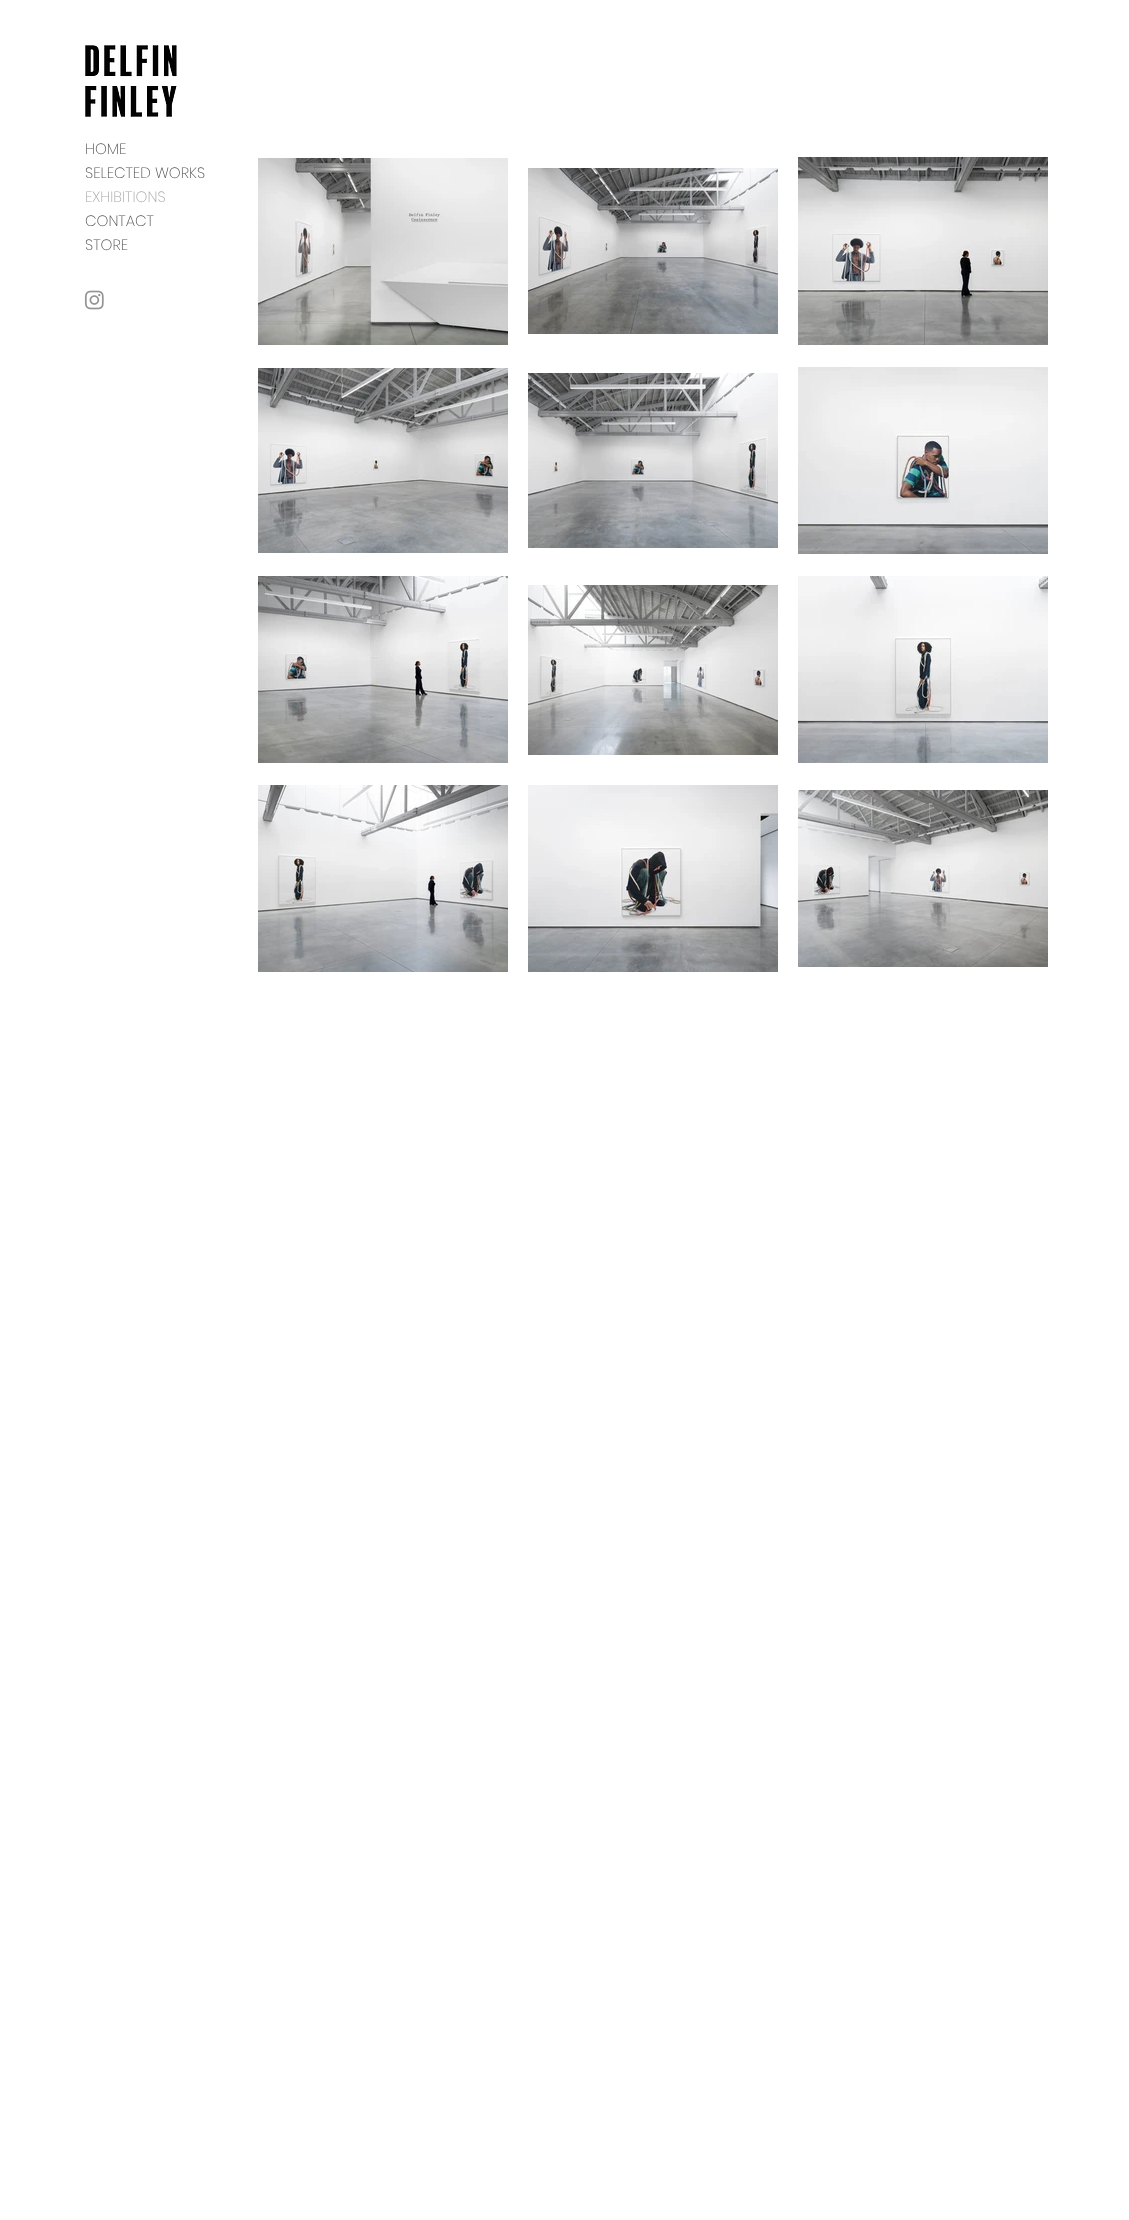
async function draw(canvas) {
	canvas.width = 1129;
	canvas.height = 2220;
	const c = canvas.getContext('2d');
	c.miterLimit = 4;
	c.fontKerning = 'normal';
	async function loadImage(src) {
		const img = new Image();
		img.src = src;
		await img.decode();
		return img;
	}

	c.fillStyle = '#fff';
	c.fillRect(0, 0, 1129, 2220);
	c.drawImage(await loadImage('img1.png'), 85, 45, 92, 72);
	c.font = '200 15px Poppins';
	c.fillStyle = '#555';
	c.fillText('HOME', 85, 154);
	c.fillText('SELECTED WORKS', 85, 178);
	c.fillStyle = '#aaa';
	c.fillText('EXHIBITIONS', 85, 202);
	c.fillStyle = '#555';
	c.fillText('CONTACT', 85, 226);
	c.fillText('STORE', 85, 250);
	c.drawImage(await loadImage('img2.png'), 84, 290, 20, 20);
	c.drawImage(await loadImage('img3.png'), 258, 158, 250, 187);
	c.drawImage(await loadImage('img4.png'), 528, 168, 250, 166);
	c.drawImage(await loadImage('img5.png'), 798, 157, 250, 188);
	c.drawImage(await loadImage('img6.png'), 258, 368, 250, 185);
	c.drawImage(await loadImage('img7.png'), 528, 373, 250, 175);
	c.drawImage(await loadImage('img8.png'), 798, 367, 250, 187);
	c.drawImage(await loadImage('img9.png'), 258, 576, 250, 187);
	c.drawImage(await loadImage('img10.png'), 528, 585, 250, 170);
	c.drawImage(await loadImage('img11.png'), 798, 576, 250, 187);
	c.drawImage(await loadImage('img12.png'), 258, 785, 250, 187);
	c.drawImage(await loadImage('img13.png'), 528, 785, 250, 187);
	c.drawImage(await loadImage('img14.png'), 798, 790, 250, 177);
}

draw(document.querySelector('canvas'));
